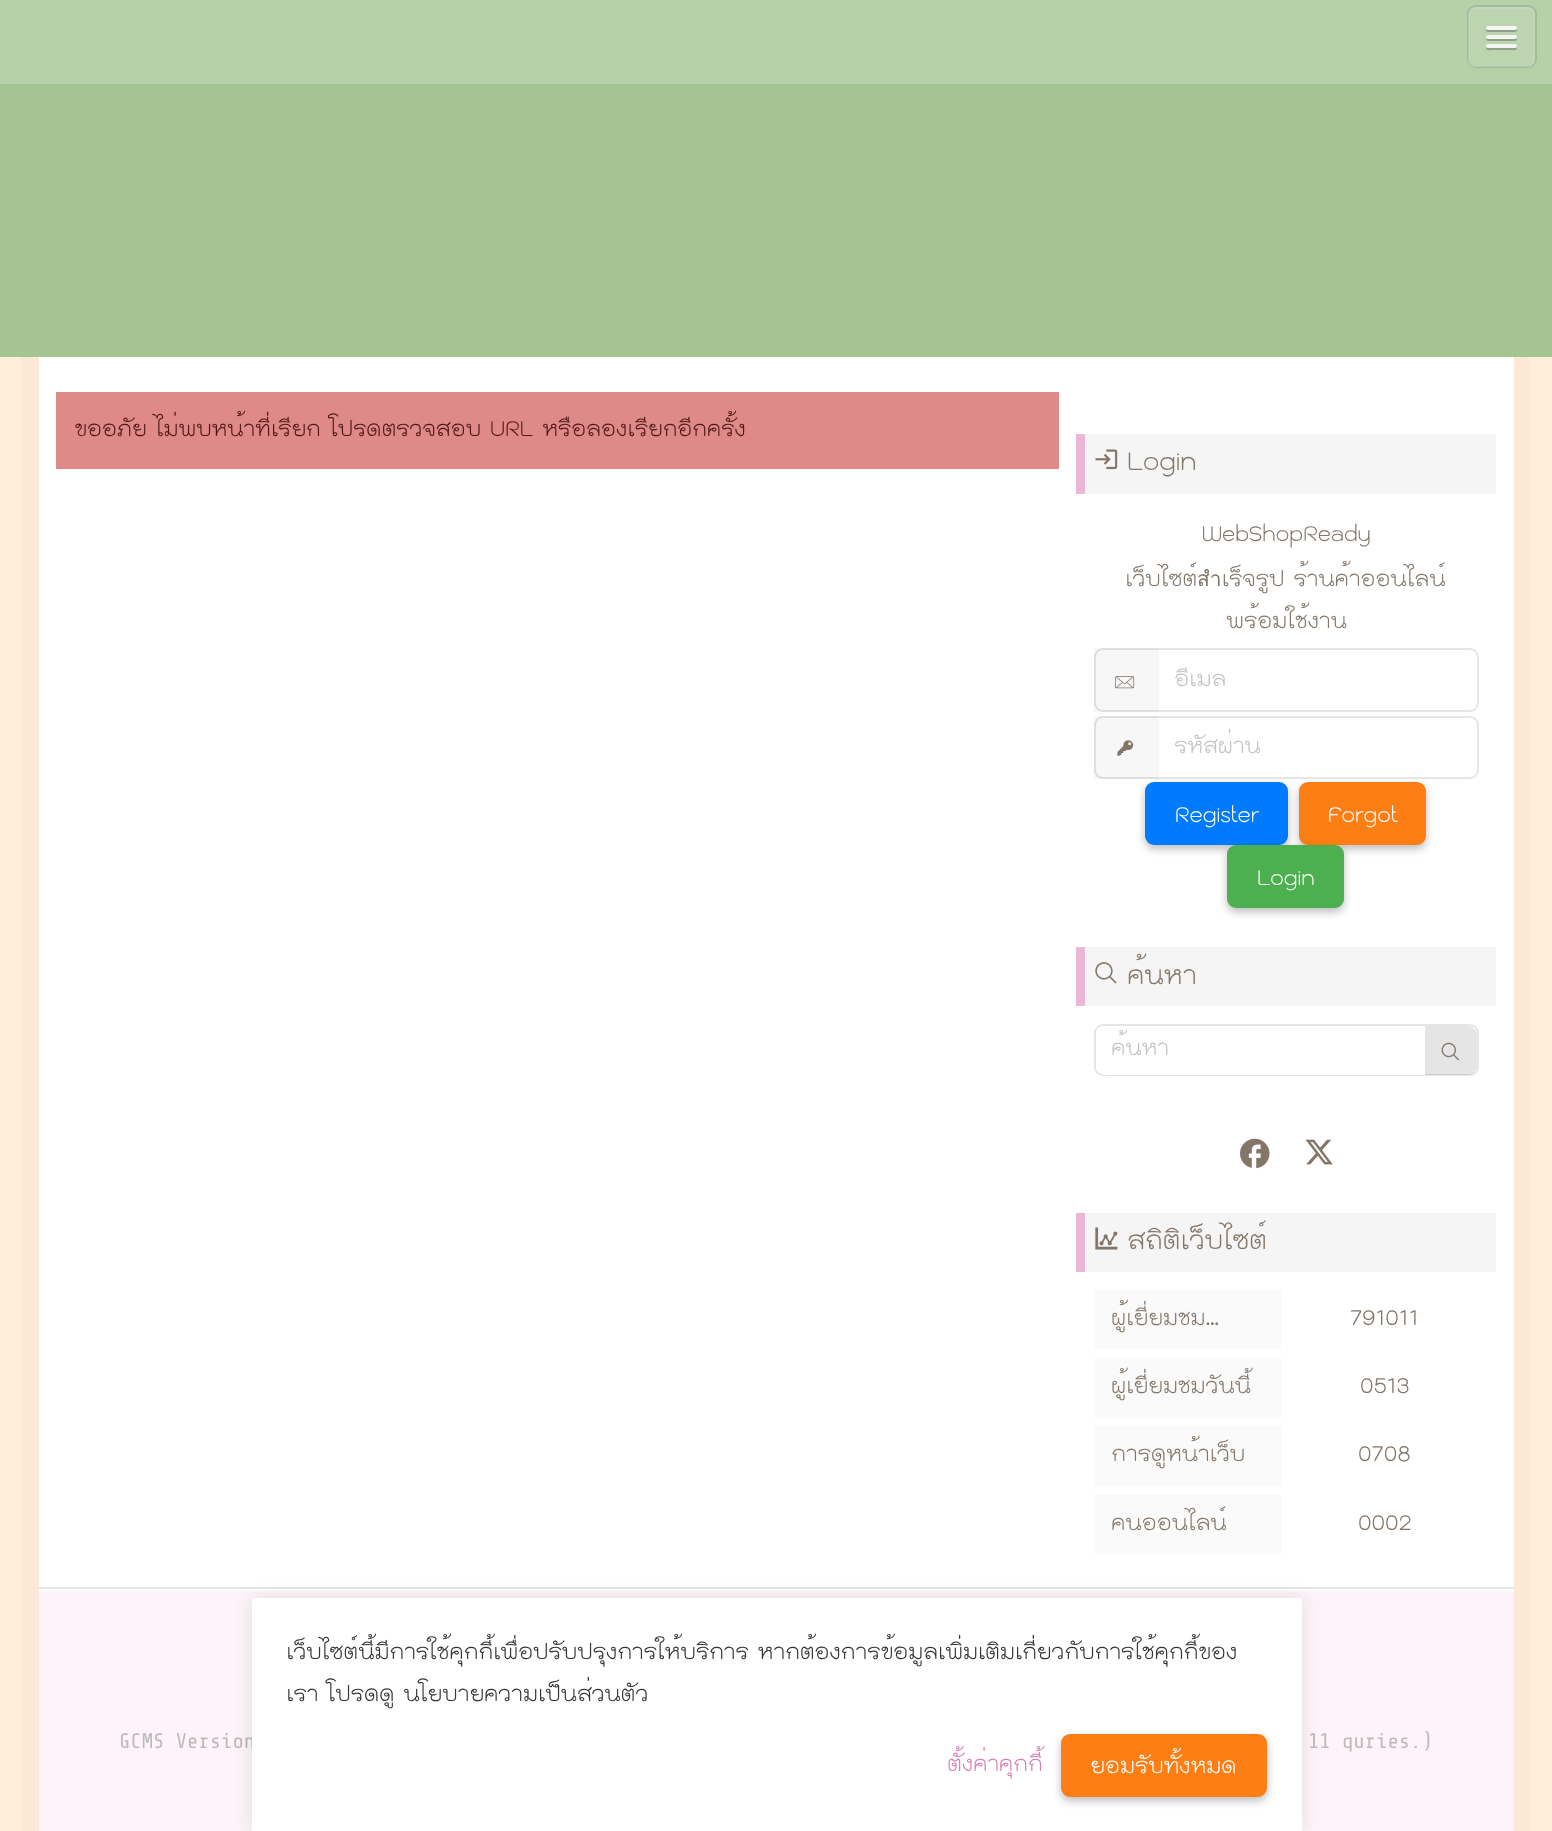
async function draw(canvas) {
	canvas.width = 1552;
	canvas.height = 1831;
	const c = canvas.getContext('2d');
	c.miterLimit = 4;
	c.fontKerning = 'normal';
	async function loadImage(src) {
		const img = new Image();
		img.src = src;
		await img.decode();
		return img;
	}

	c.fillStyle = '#fff';
	c.fillRect(0, 0, 1552, 1831);
	c.drawImage(await loadImage('img1.png'), 0, 357, 1552, 1474);
	c.fillStyle = '#a4c592';
	c.fillRect(0, 84, 1552, 273);
	c.fillStyle = '#b6d0a8';
	c.fillRect(0, 0, 1552, 84);
	c.beginPath();
	c.roundRect(1468, 6, 68, 61, 8);
	c.strokeStyle = '#a4bb97';
	c.lineWidth = 2;
	c.stroke();
	c.fillStyle = '#ffffff1a';
	c.beginPath();
	c.roundRect(1468, 7, 67, 60, 7);
	c.fill();
	c.beginPath();
	c.roundRect(1469, 8, 65, 58, 6);
	c.strokeStyle = '#ffffff1a';
	c.stroke();
	c.fillStyle = '#8ea085';
	c.beginPath();
	c.moveTo(1486, 29);
	c.bezierCurveTo(1484.5, 33, 1491.5, 32, 1492.5, 32);
	c.lineTo(1510.5, 32);
	c.bezierCurveTo(1511.5, 32, 1518.5, 33, 1517, 29);
	c.lineTo(1515.5, 29.5);
	c.lineTo(1487.5, 29.5);
	c.closePath();
	c.fill();
	c.fillStyle = '#f5f5f5';
	c.beginPath();
	c.roundRect(1486, 26, 31, 4, 2);
	c.fill();
	c.fillStyle = '#8ea085';
	c.beginPath();
	c.moveTo(1486.5, 38);
	c.bezierCurveTo(1484, 42, 1492, 41, 1492.5, 41);
	c.lineTo(1510.5, 41);
	c.bezierCurveTo(1511, 41, 1519, 42, 1516.5, 38);
	c.lineTo(1515.5, 38.5);
	c.lineTo(1487.5, 38.5);
	c.closePath();
	c.fill();
	c.fillStyle = '#f5f5f5';
	c.beginPath();
	c.roundRect(1486, 35, 31, 4, 2);
	c.fill();
	c.fillStyle = '#8ea085';
	c.beginPath();
	c.moveTo(1486.5, 47);
	c.lineTo(1486, 48.5);
	c.bezierCurveTo(1486.5, 51, 1491.5, 50, 1492.5, 50);
	c.lineTo(1510.5, 50);
	c.bezierCurveTo(1511.5, 50, 1516.5, 51, 1517, 48.5);
	c.lineTo(1516.5, 47);
	c.bezierCurveTo(1515.5, 47.5, 1487.5, 47.5, 1486.5, 47);
	c.closePath();
	c.fill();
	c.fillStyle = '#f5f5f5';
	c.beginPath();
	c.roundRect(1486, 44, 31, 4, 2);
	c.fill();
	c.fillStyle = '#fff';
	c.fillRect(39, 357, 1475, 1230);
	c.fillStyle = '#df8989';
	c.fillRect(56, 392, 1003, 77);
	c.font = '21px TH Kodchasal';
	c.fillStyle = '#501616';
	c.fillText('ขออภัย ไม่พบหน้าที่เรียก โปรดตรวจสอบ URL หรือลองเรียกอีกครั้ง', 74, 436);
	c.fillStyle = '#f5f5f5';
	c.fillRect(1085, 434, 411, 60);
	c.fillStyle = '#eab8d6';
	c.fillRect(1076, 434, 9, 60);
	c.drawImage(await loadImage('img2.png'), 1095, 449, 23, 21);
	c.font = '25.25px TH Kodchasal';
	c.fillStyle = '#837669';
	c.fillText('Login', 1127, 470);
	c.font = '21px TH Kodchasal';
	for (const [text, x, y] of [
		['WebShopReady', 1202, 541],
		['เว็บไซต์สำเร็จรูป ร้านค้าออนไลน์', 1125, 586],
		['พร้อมใช้งาน', 1226, 628],
	]) {
		c.fillText(text, x, y);
	}
	c.beginPath();
	c.roundRect(1095, 649, 383, 62, 8);
	c.strokeStyle = '#e6e6e6';
	c.stroke();
	c.fillStyle = '#00000008';
	c.fillRect(1094, 648, 65, 64);
	c.drawImage(await loadImage('img3.png'), 1115, 676, 20, 13);
	c.save();
	c.beginPath();
	c.rect(1174, 660, 294, 40);
	c.clip();
	c.fillStyle = '#c2c2c2';
	c.fillText('อีเมล', 1174, 686);
	c.restore();
	c.fillStyle = '#00000042';
	c.filter = 'blur(4.5px)';
	c.beginPath();
	c.roundRect(1145, 786, 143, 63, 9);
	c.fill();
	c.filter = 'none';
	c.fillStyle = '#007bff';
	c.beginPath();
	c.roundRect(1146, 783, 141, 61, 8);
	c.fill();
	c.strokeStyle = '#007bff';
	c.stroke();
	c.fillStyle = '#00000042';
	c.filter = 'blur(4.5px)';
	c.beginPath();
	c.roundRect(1299, 786, 127, 63, 9);
	c.fill();
	c.filter = 'none';
	c.fillStyle = '#fff';
	c.beginPath();
	c.roundRect(1095, 717, 383, 61, 8);
	c.fill();
	c.strokeStyle = '#e6e6e6';
	c.stroke();
	c.fillStyle = '#00000008';
	c.fillRect(1094, 716, 65, 63);
	c.drawImage(await loadImage('img4.png'), 1117, 740, 17, 16);
	c.fillStyle = '#c2c2c2';
	c.fillText('รหัสผ่าน', 1174, 753);
	c.fillStyle = '#fff';
	c.fillText('Register', 1175, 822);
	c.fillStyle = '#fd7e14';
	c.beginPath();
	c.roundRect(1300, 783, 125, 61, 8);
	c.fill();
	c.strokeStyle = '#fd7e14';
	c.stroke();
	c.fillStyle = '#fff';
	c.fillText('Forgot', 1328, 822);
	c.fillStyle = '#00000042';
	c.filter = 'blur(4.5px)';
	c.beginPath();
	c.roundRect(1227, 849, 117, 63, 9);
	c.fill();
	c.filter = 'none';
	c.fillStyle = '#4caf50';
	c.beginPath();
	c.roundRect(1228, 846, 115, 61, 8);
	c.fill();
	c.strokeStyle = '#4caf50';
	c.stroke();
	c.fillStyle = '#fff';
	c.fillText('Login', 1257, 885);
	c.fillStyle = '#f5f5f5';
	c.fillRect(1085, 947, 411, 59);
	c.fillStyle = '#eab8d6';
	c.fillRect(1076, 947, 9, 59);
	c.drawImage(await loadImage('img5.png'), 1095, 962, 22, 22);
	c.font = '25.25px TH Kodchasal';
	c.fillStyle = '#837669';
	c.fillText('ค้นหา', 1127, 984);
	c.beginPath();
	c.roundRect(1095, 1025, 383, 50, 8);
	c.strokeStyle = '#e6e6e6';
	c.stroke();
	c.fillStyle = '#fff';
	c.beginPath();
	c.roundRect(1096, 1026, 329, 49, [9, 0, 0, 9]);
	c.fill();
	c.save();
	c.beginPath();
	c.rect(1111, 1029, 298, 40);
	c.clip();
	c.font = '21px TH Kodchasal';
	c.fillStyle = '#c2c2c2';
	c.fillText('ค้นหา', 1111, 1055);
	c.restore();
	c.fillStyle = '#0000001a';
	c.beginPath();
	c.roundRect(1425, 1026, 52, 49, [0, 9, 9, 0]);
	c.fill();
	c.drawImage(await loadImage('img6.png'), 1441, 1042, 19, 19);
	c.drawImage(await loadImage('img7.png'), 1240, 1138, 30, 31);
	c.drawImage(await loadImage('img8.png'), 1305, 1139, 28, 26);
	c.fillStyle = '#f5f5f5';
	c.fillRect(1085, 1213, 411, 59);
	c.fillStyle = '#eab8d6';
	c.fillRect(1076, 1213, 9, 59);
	c.drawImage(await loadImage('img9.png'), 1095, 1227, 23, 23);
	c.fillStyle = '#837669';
	c.fillText('สถิติเว็บไซต์', 1127, 1249);
	c.fillStyle = '#fafafa';
	c.fillRect(1094, 1290, 187, 59);
	c.font = '21px TH Kodchasal';
	c.fillStyle = '#837669';
	c.fillText('ผู้เยี่ยมชม…', 1111, 1325);
	c.fillText('791011', 1350, 1325);
	c.fillStyle = '#fafafa';
	c.fillRect(1094, 1358, 187, 60);
	c.fillStyle = '#837669';
	c.fillText('ผู้เยี่ยมชมวันนี้', 1111, 1393);
	c.fillText('0513', 1360, 1393);
	c.fillStyle = '#fafafa';
	c.fillRect(1094, 1426, 187, 60);
	c.fillStyle = '#837669';
	c.fillText('การดูหน้าเว็บ', 1111, 1461);
	c.fillText('0708', 1358, 1461);
	c.fillStyle = '#fafafa';
	c.fillRect(1094, 1495, 187, 59);
	c.fillStyle = '#837669';
	c.fillText('คนออนไลน์', 1111, 1530);
	c.fillText('0002', 1358, 1530);
	c.fillStyle = '#e6e6e6';
	c.beginPath();
	c.moveTo(39, 1587);
	c.lineTo(39, 1589);
	c.lineTo(1514, 1589);
	c.lineTo(1514, 1831);
	c.lineTo(1514, 1587);
	c.closePath();
	c.fill();
	c.fillStyle = '#fdf3f9';
	c.fillRect(39, 1591, 1475, 240);
	c.fillStyle = '#fff';
	c.fillRect(39, 1589, 1475, 2);
	c.font = '21px Share Tech Mono';
	c.fillStyle = '#bbb';
	c.fillText('GCMS Version', 119, 1748);
	c.fillText('11 quries.)', 1308, 1748);
	c.fillStyle = '#0000001a';
	c.filter = 'blur(9px)';
	c.beginPath();
	c.rect(252, 1598, 1050, 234);
	c.fill();
	c.filter = 'none';
	c.fillStyle = '#fff';
	c.fillRect(252, 1598, 1050, 233);
	c.font = '21px TH Kodchasal';
	c.fillStyle = '#333';
	c.fillText('เว็บไซต์นี้มีการใช้คุกกี้เพื่อปรับปรุงการให้บริการ หากต้องการข้อมูลเพิ่มเติมเกี่ยวกับการใช้คุกกี้ของ', 286, 1659);
	c.fillText('เรา โปรดดู นโยบายความเป็นส่วนตัว', 286, 1701);
	c.fillStyle = '#d87eb4';
	c.fillText('ตั้งค่าคุกกี้', 947, 1771);
	c.fillStyle = '#00000042';
	c.filter = 'blur(4.5px)';
	c.beginPath();
	c.roundRect(1061, 1738, 206, 63, 9);
	c.fill();
	c.filter = 'none';
	c.fillStyle = '#fd7e14';
	c.beginPath();
	c.roundRect(1062, 1735, 204, 61, 8);
	c.fill();
	c.strokeStyle = '#fd7e14';
	c.stroke();
	c.fillStyle = '#fff';
	c.fillText('ยอมรับทั้งหมด', 1090, 1773);
}

draw(document.querySelector('canvas'));
